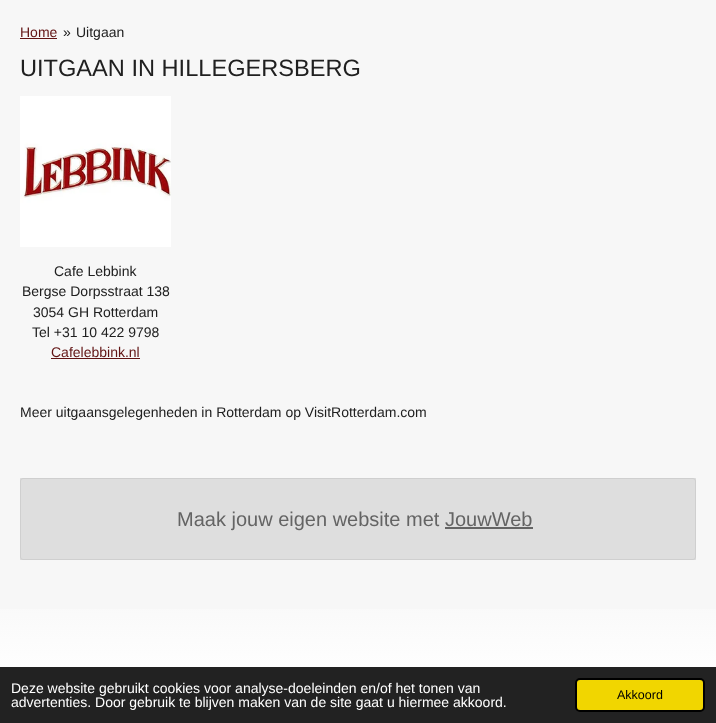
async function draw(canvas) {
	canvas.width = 716;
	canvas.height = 723;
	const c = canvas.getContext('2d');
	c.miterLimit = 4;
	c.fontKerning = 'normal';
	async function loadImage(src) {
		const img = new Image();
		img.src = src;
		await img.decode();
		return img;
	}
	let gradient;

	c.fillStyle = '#f7f7f7';
	c.fillRect(0, 0, 716, 723);
	c.font = '14px Liberation Sans';
	c.fillStyle = '#611313';
	c.fillText('Home', 20, 37);
	c.fillRect(20, 38, 37, 1);
	c.fillStyle = '#202020';
	c.fillText('»', 63, 37);
	c.fillText('Uitgaan', 76, 37);
	c.font = '23.6px Liberation Sans';
	c.fillText('UITGAAN IN HILLEGERSBERG', 20, 76);
	c.drawImage(await loadImage('img1.png'), 20, 96, 151, 151);
	c.font = '14px Liberation Sans';
	for (const [text, x, y] of [
		['Cafe Lebbink', 54, 276],
		['Bergse Dorpsstraat 138', 22, 296],
		['3054 GH Rotterdam', 33, 317],
		['Tel +31 10 422 9798', 32, 337],
	]) {
		c.fillText(text, x, y);
	}
	c.fillStyle = '#611313';
	c.fillText('Cafelebbink.nl', 51, 357);
	c.fillRect(51, 358, 89, 1);
	c.fillStyle = '#202020';
	c.fillText('Meer uitgaansgelegenheden in Rotterdam op VisitRotterdam.com', 20, 417);
	c.fillStyle = '#dedede';
	c.fillRect(20, 478, 676, 82);
	c.beginPath();
	c.roundRect(20.5, 478.5, 675, 81, 2.5);
	c.strokeStyle = '#cfcfcf';
	c.stroke();
	c.font = '20px Liberation Sans';
	c.fillStyle = '#646464';
	c.fillText('Maak jouw eigen website met', 177, 526);
	c.fillText('JouwWeb', 445, 526);
	c.fillRect(445, 527, 88, 2);
	gradient = c.createLinearGradient(358, 578, 358, 678);
	gradient.addColorStop(0, '#f7f7f7');
	gradient.addColorStop(1, '#fff');
	c.fillStyle = gradient;
	c.fillRect(0, 609, 716, 58);
	c.fillStyle = '#222';
	c.fillRect(0, 667, 716, 56);
	c.font = '14px Liberation Sans';
	c.fillStyle = '#fff';
	c.fillText('Deze website gebruikt cookies voor analyse-doeleinden en/of het tonen van', 11, 693);
	c.fillText('advertenties. Door gebruik te blijven maken van de site gaat u hiermee akkoord.', 11, 707);
	c.fillStyle = '#f1d600';
	c.beginPath();
	c.roundRect(576, 679, 128, 32, 4);
	c.fill();
	c.strokeStyle = '#000';
	c.lineWidth = 2;
	c.stroke();
	c.font = '12.5px Liberation Sans';
	c.fillStyle = '#000';
	c.fillText('Akkoord', 617, 699);
}

draw(document.querySelector('canvas'));
